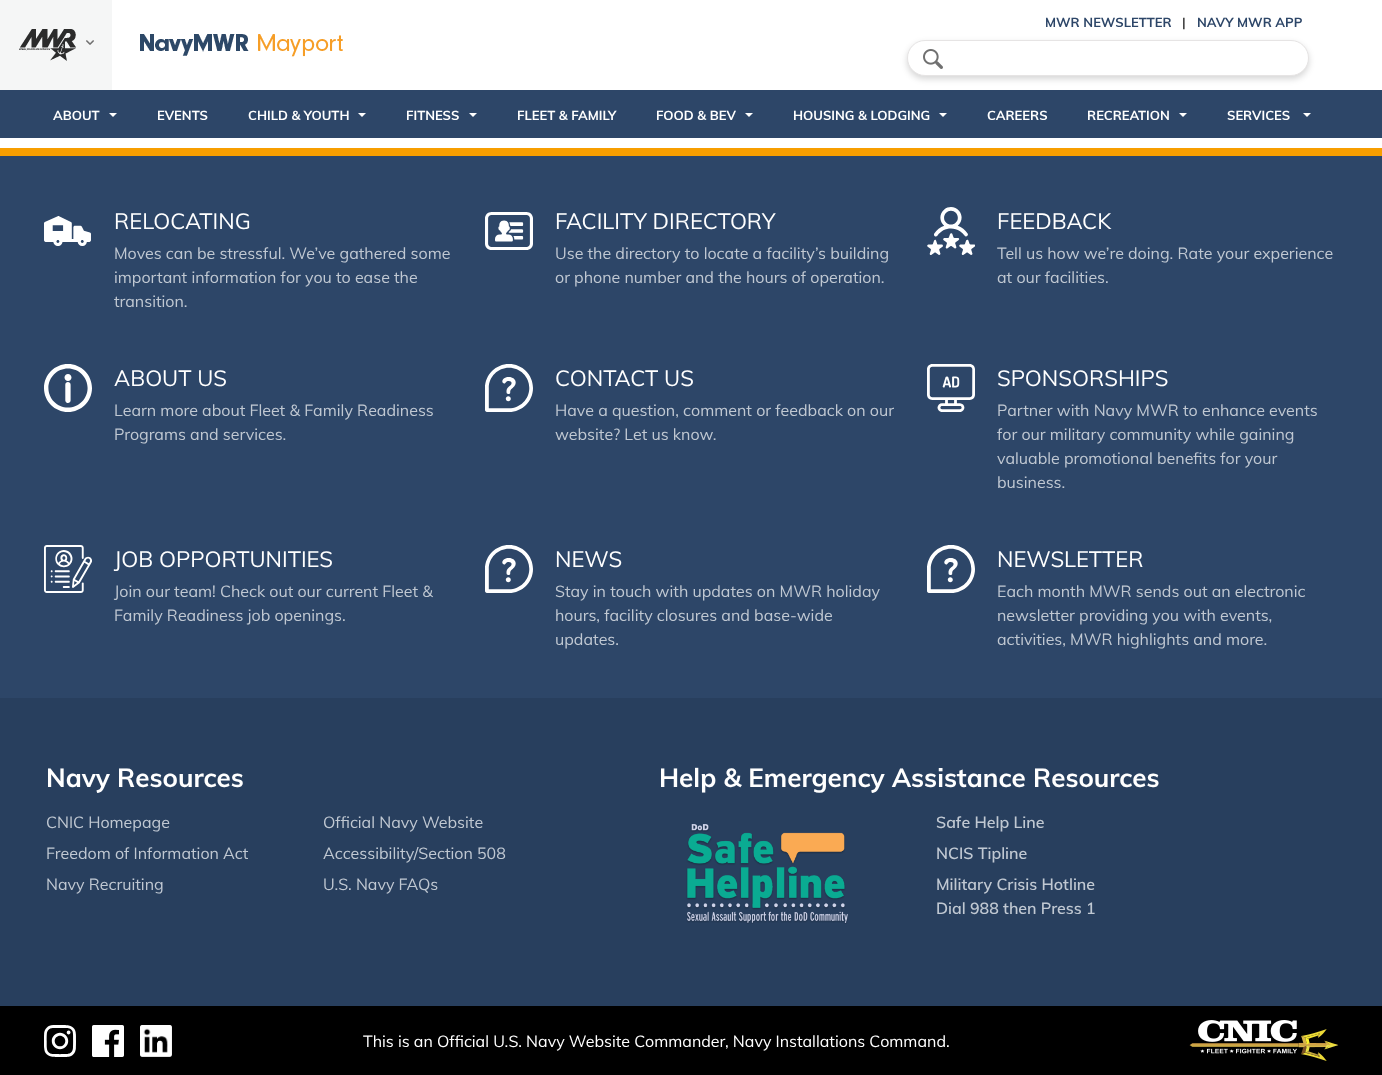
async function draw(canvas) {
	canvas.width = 1382;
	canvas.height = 1075;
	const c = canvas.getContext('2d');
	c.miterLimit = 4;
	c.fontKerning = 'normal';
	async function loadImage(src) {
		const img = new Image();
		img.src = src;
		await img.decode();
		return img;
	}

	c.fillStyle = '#fff';
	c.fillRect(0, 0, 1382, 1075);
	c.fillStyle = '#f5f6f6';
	c.fillRect(0, 0, 112, 90);
	c.drawImage(await loadImage('img1.png'), 19, 29, 57, 32);
	c.drawImage(await loadImage('img2.png'), 86, 40, 8, 5);
	c.font = 'bold 13px Muli';
	c.fillStyle = '#2d4668';
	c.fillText('MWR NEWSLETTER', 1045, 27);
	c.fillStyle = '#3a3a3a';
	c.fillText('|', 1182, 27);
	c.fillStyle = '#2d4668';
	c.fillText('NAVY MWR APP', 1197, 27);
	c.fillStyle = '#00000029';
	c.filter = 'blur(3px)';
	c.beginPath();
	c.roundRect(907, 43, 402, 36, 18);
	c.fill();
	c.filter = 'none';
	c.fillStyle = '#fff';
	c.beginPath();
	c.roundRect(907.5, 40.5, 401, 35, 17.5);
	c.fill();
	c.strokeStyle = '#e6e4e4';
	c.stroke();
	c.drawImage(await loadImage('img3.png'), 923, 49, 20, 20);
	c.drawImage(await loadImage('img4.png'), 140, 34, 203, 23);
	c.fillStyle = '#2d4668';
	c.fillRect(0, 90, 1382, 48);
	c.fillStyle = '#fff';
	c.fillText('ABOUT', 53, 120);
	c.beginPath();
	c.moveTo(109, 113);
	c.lineTo(117, 113);
	c.lineTo(113, 117);
	c.closePath();
	c.fill();
	c.fillText('EVENTS', 157, 120);
	c.fillText('CHILD & YOUTH', 248, 120);
	c.beginPath();
	c.moveTo(358, 113);
	c.lineTo(366, 113);
	c.lineTo(362, 117);
	c.closePath();
	c.fill();
	c.fillText('FITNESS', 406, 120);
	c.beginPath();
	c.moveTo(469, 113);
	c.lineTo(477, 113);
	c.lineTo(473, 117);
	c.closePath();
	c.fill();
	c.fillText('FLEET & FAMILY', 517, 120);
	c.fillText('FOOD & BEV', 656, 120);
	c.beginPath();
	c.moveTo(745, 113);
	c.lineTo(753, 113);
	c.lineTo(749, 117);
	c.closePath();
	c.fill();
	c.fillText('HOUSING & LODGING', 793, 120);
	c.beginPath();
	c.moveTo(939, 113);
	c.lineTo(947, 113);
	c.lineTo(943, 117);
	c.closePath();
	c.fill();
	c.fillText('CAREERS', 987, 120);
	c.fillText('RECREATION', 1087, 120);
	c.beginPath();
	c.moveTo(1179, 113);
	c.lineTo(1187, 113);
	c.lineTo(1183, 117);
	c.closePath();
	c.fill();
	c.fillText('SERVICES', 1227, 120);
	c.beginPath();
	c.moveTo(1303, 113);
	c.lineTo(1311, 113);
	c.lineTo(1307, 117);
	c.closePath();
	c.fill();
	c.fillStyle = '#2d4668';
	c.fillRect(0, 156, 1382, 542);
	c.fillStyle = '#f79e00';
	c.fillRect(0, 148, 1382, 8);
	c.drawImage(await loadImage('img5.png'), 44, 216, 47, 30);
	c.font = '22px Muli';
	c.fillStyle = '#fff';
	c.fillText('RELOCATING', 114, 229);
	c.font = '16px Muli';
	c.fillStyle = '#c0c8d2';
	for (const [text, x, y] of [
		['Moves can be stressful. We’ve gathered some', 114, 259],
		['important information for you to ease the', 114, 283],
		['transition.', 114, 307],
	]) {
		c.fillText(text, x, y);
	}
	c.drawImage(await loadImage('img6.png'), 485, 212, 48, 38);
	c.font = '22px Muli';
	c.fillStyle = '#fff';
	c.fillText('FACILITY DIRECTORY', 555, 229);
	c.font = '16px Muli';
	c.fillStyle = '#c0c8d2';
	c.fillText('Use the directory to locate a facility’s building', 555, 259);
	c.fillText('or phone number and the hours of operation.', 555, 283);
	c.drawImage(await loadImage('img7.png'), 927, 207, 48, 48);
	c.font = '22px Muli';
	c.fillStyle = '#fff';
	c.fillText('FEEDBACK', 997, 229);
	c.font = '16px Muli';
	c.fillStyle = '#c0c8d2';
	c.fillText('Tell us how we’re doing. Rate your experience', 997, 259);
	c.fillText('at our facilities.', 997, 283);
	c.drawImage(await loadImage('img8.png'), 44, 364, 48, 48);
	c.font = '22px Muli';
	c.fillStyle = '#fff';
	c.fillText('ABOUT US', 114, 386);
	c.font = '16px Muli';
	c.fillStyle = '#c0c8d2';
	c.fillText('Learn more about Fleet & Family Readiness', 114, 416);
	c.fillText('Programs and services.', 114, 440);
	c.drawImage(await loadImage('img9.png'), 485, 364, 48, 48);
	c.font = '22px Muli';
	c.fillStyle = '#fff';
	c.fillText('CONTACT US', 555, 386);
	c.font = '16px Muli';
	c.fillStyle = '#c0c8d2';
	c.fillText('Have a question, comment or feedback on our', 555, 416);
	c.fillText('website? Let us know.', 555, 440);
	c.drawImage(await loadImage('img10.png'), 927, 364, 48, 48);
	c.font = '22px Muli';
	c.fillStyle = '#fff';
	c.fillText('SPONSORSHIPS', 997, 386);
	c.font = '16px Muli';
	c.fillStyle = '#c0c8d2';
	for (const [text, x, y] of [
		['Partner with Navy MWR to enhance events', 997, 416],
		['for our military community while gaining', 997, 440],
		['valuable promotional benefits for your', 997, 464],
		['business.', 997, 488],
	]) {
		c.fillText(text, x, y);
	}
	c.drawImage(await loadImage('img11.png'), 44, 545, 48, 48);
	c.font = '22px Muli';
	c.fillStyle = '#fff';
	c.fillText('JOB OPPORTUNITIES', 114, 567);
	c.font = '16px Muli';
	c.fillStyle = '#c0c8d2';
	c.fillText('Join our team! Check out our current Fleet &', 114, 597);
	c.fillText('Family Readiness job openings.', 114, 621);
	c.drawImage(await loadImage('img9.png'), 485, 545, 48, 48);
	c.font = '22px Muli';
	c.fillStyle = '#fff';
	c.fillText('NEWS', 555, 567);
	c.font = '16px Muli';
	c.fillStyle = '#c0c8d2';
	for (const [text, x, y] of [
		['Stay in touch with updates on MWR holiday', 555, 597],
		['hours, facility closures and base-wide', 555, 621],
		['updates.', 555, 645],
	]) {
		c.fillText(text, x, y);
	}
	c.drawImage(await loadImage('img12.png'), 927, 545, 48, 48);
	c.font = '22px Muli';
	c.fillStyle = '#fff';
	c.fillText('NEWSLETTER', 997, 567);
	c.font = '16px Muli';
	c.fillStyle = '#c0c8d2';
	for (const [text, x, y] of [
		['Each month MWR sends out an electronic', 997, 597],
		['newsletter providing you with events,', 997, 621],
		['activities, MWR highlights and more.', 997, 645],
	]) {
		c.fillText(text, x, y);
	}
	c.fillStyle = '#283f5e';
	c.fillRect(0, 698, 1382, 308);
	c.font = 'bold 26px Muli';
	c.fillStyle = '#fff';
	c.fillText('Navy Resources', 46, 787);
	c.font = '16px Muli';
	c.fillStyle = '#c0c8d2';
	for (const [text, x, y] of [
		['CNIC Homepage', 46, 828],
		['Official Navy Website', 323, 828],
		['Freedom of Information Act', 46, 859],
		['Accessibility/Section 508', 323, 859],
		['Navy Recruiting', 46, 890],
		['U.S. Navy FAQs', 323, 890],
	]) {
		c.fillText(text, x, y);
	}
	c.font = 'bold 26px Muli';
	c.fillStyle = '#fff';
	c.fillText('Help & Emergency Assistance Resources', 659, 787);
	c.drawImage(await loadImage('img13.png'), 686, 824, 162, 100);
	c.font = '600 16px Muli';
	c.fillStyle = '#c0c8d2';
	for (const [text, x, y] of [
		['Safe Help Line', 936, 828],
		['NCIS Tipline', 936, 859],
		['Military Crisis Hotline', 936, 890],
		['Dial 988 then Press 1', 936, 914],
	]) {
		c.fillText(text, x, y);
	}
	c.fillStyle = '#000';
	c.fillRect(0, 1006, 1382, 69);
	c.drawImage(await loadImage('img14.png'), 44, 1025, 32, 32);
	c.drawImage(await loadImage('img15.png'), 92, 1025, 32, 32);
	c.drawImage(await loadImage('img16.png'), 140, 1025, 32, 32);
	c.font = '16px Muli';
	c.fillStyle = '#fff';
	c.fillText('This is an Official U.S. Navy Website Commander, Navy Installations Command.', 363, 1047);
	c.drawImage(await loadImage('img17.png'), 1189, 1020, 150, 41);
}

draw(document.querySelector('canvas'));
